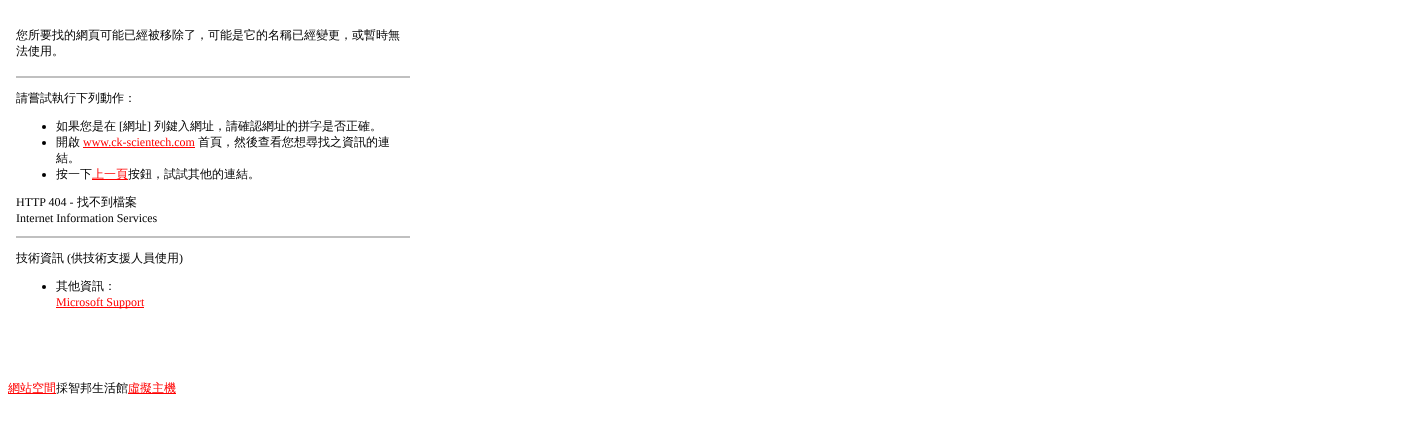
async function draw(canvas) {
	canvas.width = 1420;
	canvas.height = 434;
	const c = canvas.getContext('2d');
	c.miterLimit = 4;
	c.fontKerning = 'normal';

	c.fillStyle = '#fff';
	c.fillRect(0, 0, 1420, 434);
	c.font = '500 12px WenQuanYi Zen Hei';
	c.fillStyle = '#000';
	c.fillText('您所要找的網頁可能已經被移除了，可能是它的名稱已經變更，或暫時無', 16, 39);
	c.fillText('法使用。', 16, 55);
	c.fillStyle = '#c0c0c0';
	c.fillRect(16, 76, 394, 2);
	c.fillStyle = '#000';
	c.fillText('請嘗試執行下列動作：', 16, 102);
	c.beginPath();
	c.arc(44, 127, 2, 0, 2 * Math.PI);
	c.fill();
	c.fillText('如果您是在', 56, 130);
	c.font = '12px Liberation Serif';
	c.fillText('[', 119, 130);
	c.font = '500 12px WenQuanYi Zen Hei';
	c.fillText('網址', 123, 130);
	c.font = '12px Liberation Serif';
	c.fillText(']', 147, 130);
	c.font = '500 12px WenQuanYi Zen Hei';
	c.fillText('列鍵入網址，請確認網址的拼字是否正確。', 154, 130);
	c.beginPath();
	c.arc(44, 143, 2, 0, 2 * Math.PI);
	c.fill();
	c.fillText('開啟', 56, 146);
	c.font = '12px Liberation Serif';
	c.fillStyle = '#f00';
	c.fillText('www.ck-scientech.com', 83, 146);
	c.fillRect(83, 147, 112, 1);
	c.font = '500 12px WenQuanYi Zen Hei';
	c.fillStyle = '#000';
	c.fillText('首頁，然後查看您想尋找之資訊的連', 198, 146);
	c.fillText('結。', 56, 162);
	c.beginPath();
	c.arc(44, 175, 2, 0, 2 * Math.PI);
	c.fill();
	c.fillText('按一下', 56, 178);
	c.fillStyle = '#f00';
	c.fillRect(92, 179, 36, 1);
	c.fillText('上一頁', 92, 178);
	c.fillStyle = '#000';
	c.fillText('按鈕，試試其他的連結。', 128, 178);
	c.font = '12px Liberation Serif';
	c.fillText('HTTP 404 -', 16, 206);
	c.font = '500 12px WenQuanYi Zen Hei';
	c.fillText('找不到檔案', 77, 206);
	c.font = '12px Liberation Serif';
	c.fillText('Internet Information Services', 16, 222);
	c.fillStyle = '#c0c0c0';
	c.fillRect(16, 236, 394, 2);
	c.font = '500 12px WenQuanYi Zen Hei';
	c.fillStyle = '#000';
	c.fillText('技術資訊', 16, 262);
	c.font = '12px Liberation Serif';
	c.fillText('(', 67, 262);
	c.font = '500 12px WenQuanYi Zen Hei';
	c.fillText('供技術支援人員使用', 71, 262);
	c.font = '12px Liberation Serif';
	c.fillText(')', 179, 262);
	c.beginPath();
	c.arc(44, 287, 2, 0, 2 * Math.PI);
	c.fill();
	c.font = '500 12px WenQuanYi Zen Hei';
	c.fillText('其他資訊：', 56, 290);
	c.fillStyle = '#f00';
	c.fillRect(56, 307, 88, 1);
	c.font = '12px Liberation Serif';
	c.fillText('Microsoft Support', 56, 306);
	c.fillRect(8, 393, 48, 1);
	c.font = '500 12px WenQuanYi Zen Hei';
	c.fillText('網站空間', 8, 392);
	c.fillStyle = '#000';
	c.fillText('採智邦生活館', 56, 392);
	c.fillStyle = '#f00';
	c.fillRect(128, 393, 48, 1);
	c.fillText('虛擬主機', 128, 392);
}

draw(document.querySelector('canvas'));
